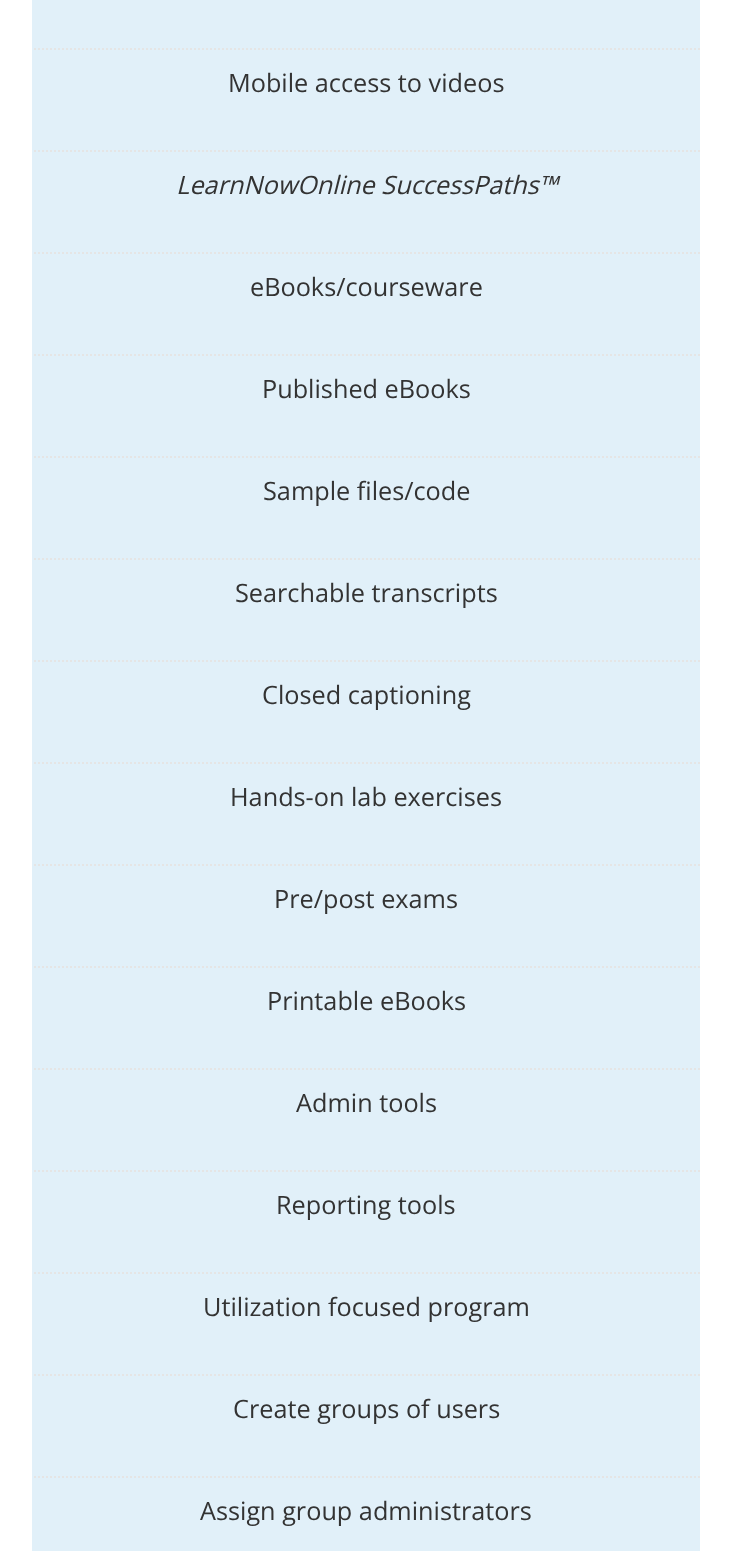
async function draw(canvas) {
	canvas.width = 730;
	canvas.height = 1551;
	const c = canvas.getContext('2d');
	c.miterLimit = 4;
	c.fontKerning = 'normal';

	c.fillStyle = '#fff';
	c.fillRect(0, 0, 730, 1551);
	c.fillStyle = '#e1f0f9';
	c.fillRect(32, 0, 668, 1551);
	c.beginPath();
	c.moveTo(30, 49);
	c.lineTo(700, 49);
	c.strokeStyle = '#e5e5e5';
	c.lineWidth = 2;
	c.setLineDash([2, 2]);
	c.stroke();
	c.fillStyle = '#fff';
	c.fillRect(30, 48, 2, 2);
	c.font = '25.25px Open Sans';
	c.fillStyle = '#333';
	c.fillText('Mobile access to videos', 228, 92);
	c.beginPath();
	c.moveTo(30, 151);
	c.lineTo(700, 151);
	c.stroke();
	c.fillStyle = '#fff';
	c.fillRect(30, 150, 2, 2);
	c.font = 'italic 25.25px Open Sans';
	c.fillStyle = '#333';
	c.fillText('LearnNowOnline SuccessPaths™', 176, 194);
	c.beginPath();
	c.moveTo(30, 253);
	c.lineTo(700, 253);
	c.stroke();
	c.fillStyle = '#fff';
	c.fillRect(30, 252, 2, 2);
	c.font = '25.25px Open Sans';
	c.fillStyle = '#333';
	c.fillText('eBooks/courseware', 250, 296);
	c.beginPath();
	c.moveTo(30, 355);
	c.lineTo(700, 355);
	c.stroke();
	c.fillStyle = '#fff';
	c.fillRect(30, 354, 2, 2);
	c.fillStyle = '#333';
	c.fillText('Published eBooks', 262, 398);
	c.beginPath();
	c.moveTo(30, 457);
	c.lineTo(700, 457);
	c.stroke();
	c.fillStyle = '#fff';
	c.fillRect(30, 456, 2, 2);
	c.fillStyle = '#333';
	c.fillText('Sample files/code', 263, 500);
	c.beginPath();
	c.moveTo(30, 559);
	c.lineTo(700, 559);
	c.stroke();
	c.fillStyle = '#fff';
	c.fillRect(30, 558, 2, 2);
	c.fillStyle = '#333';
	c.fillText('Searchable transcripts', 235, 602);
	c.beginPath();
	c.moveTo(30, 661);
	c.lineTo(700, 661);
	c.stroke();
	c.fillStyle = '#fff';
	c.fillRect(30, 660, 2, 2);
	c.fillStyle = '#333';
	c.fillText('Closed captioning', 262, 704);
	c.beginPath();
	c.moveTo(30, 763);
	c.lineTo(700, 763);
	c.stroke();
	c.fillStyle = '#fff';
	c.fillRect(30, 762, 2, 2);
	c.fillStyle = '#333';
	c.fillText('Hands-on lab exercises', 230, 806);
	c.beginPath();
	c.moveTo(30, 865);
	c.lineTo(700, 865);
	c.stroke();
	c.fillStyle = '#fff';
	c.fillRect(30, 864, 2, 2);
	c.fillStyle = '#333';
	c.fillText('Pre/post exams', 274, 908);
	c.beginPath();
	c.moveTo(30, 967);
	c.lineTo(700, 967);
	c.stroke();
	c.fillStyle = '#fff';
	c.fillRect(30, 966, 2, 2);
	c.fillStyle = '#333';
	c.fillText('Printable eBooks', 267, 1010);
	c.beginPath();
	c.moveTo(30, 1069);
	c.lineTo(700, 1069);
	c.stroke();
	c.fillStyle = '#fff';
	c.fillRect(30, 1068, 2, 2);
	c.fillStyle = '#333';
	c.fillText('Admin tools', 296, 1112);
	c.beginPath();
	c.moveTo(30, 1171);
	c.lineTo(700, 1171);
	c.stroke();
	c.fillStyle = '#fff';
	c.fillRect(30, 1170, 2, 2);
	c.fillStyle = '#333';
	c.fillText('Reporting tools', 276, 1214);
	c.beginPath();
	c.moveTo(30, 1273);
	c.lineTo(700, 1273);
	c.stroke();
	c.fillStyle = '#fff';
	c.fillRect(30, 1272, 2, 2);
	c.fillStyle = '#333';
	c.fillText('Utilization focused program', 203, 1316);
	c.beginPath();
	c.moveTo(30, 1375);
	c.lineTo(700, 1375);
	c.stroke();
	c.fillStyle = '#fff';
	c.fillRect(30, 1374, 2, 2);
	c.fillStyle = '#333';
	c.fillText('Create groups of users', 233, 1418);
	c.beginPath();
	c.moveTo(30, 1477);
	c.lineTo(700, 1477);
	c.stroke();
	c.fillStyle = '#fff';
	c.fillRect(30, 1476, 2, 2);
	c.fillStyle = '#333';
	c.fillText('Assign group administrators', 200, 1520);
}

draw(document.querySelector('canvas'));
